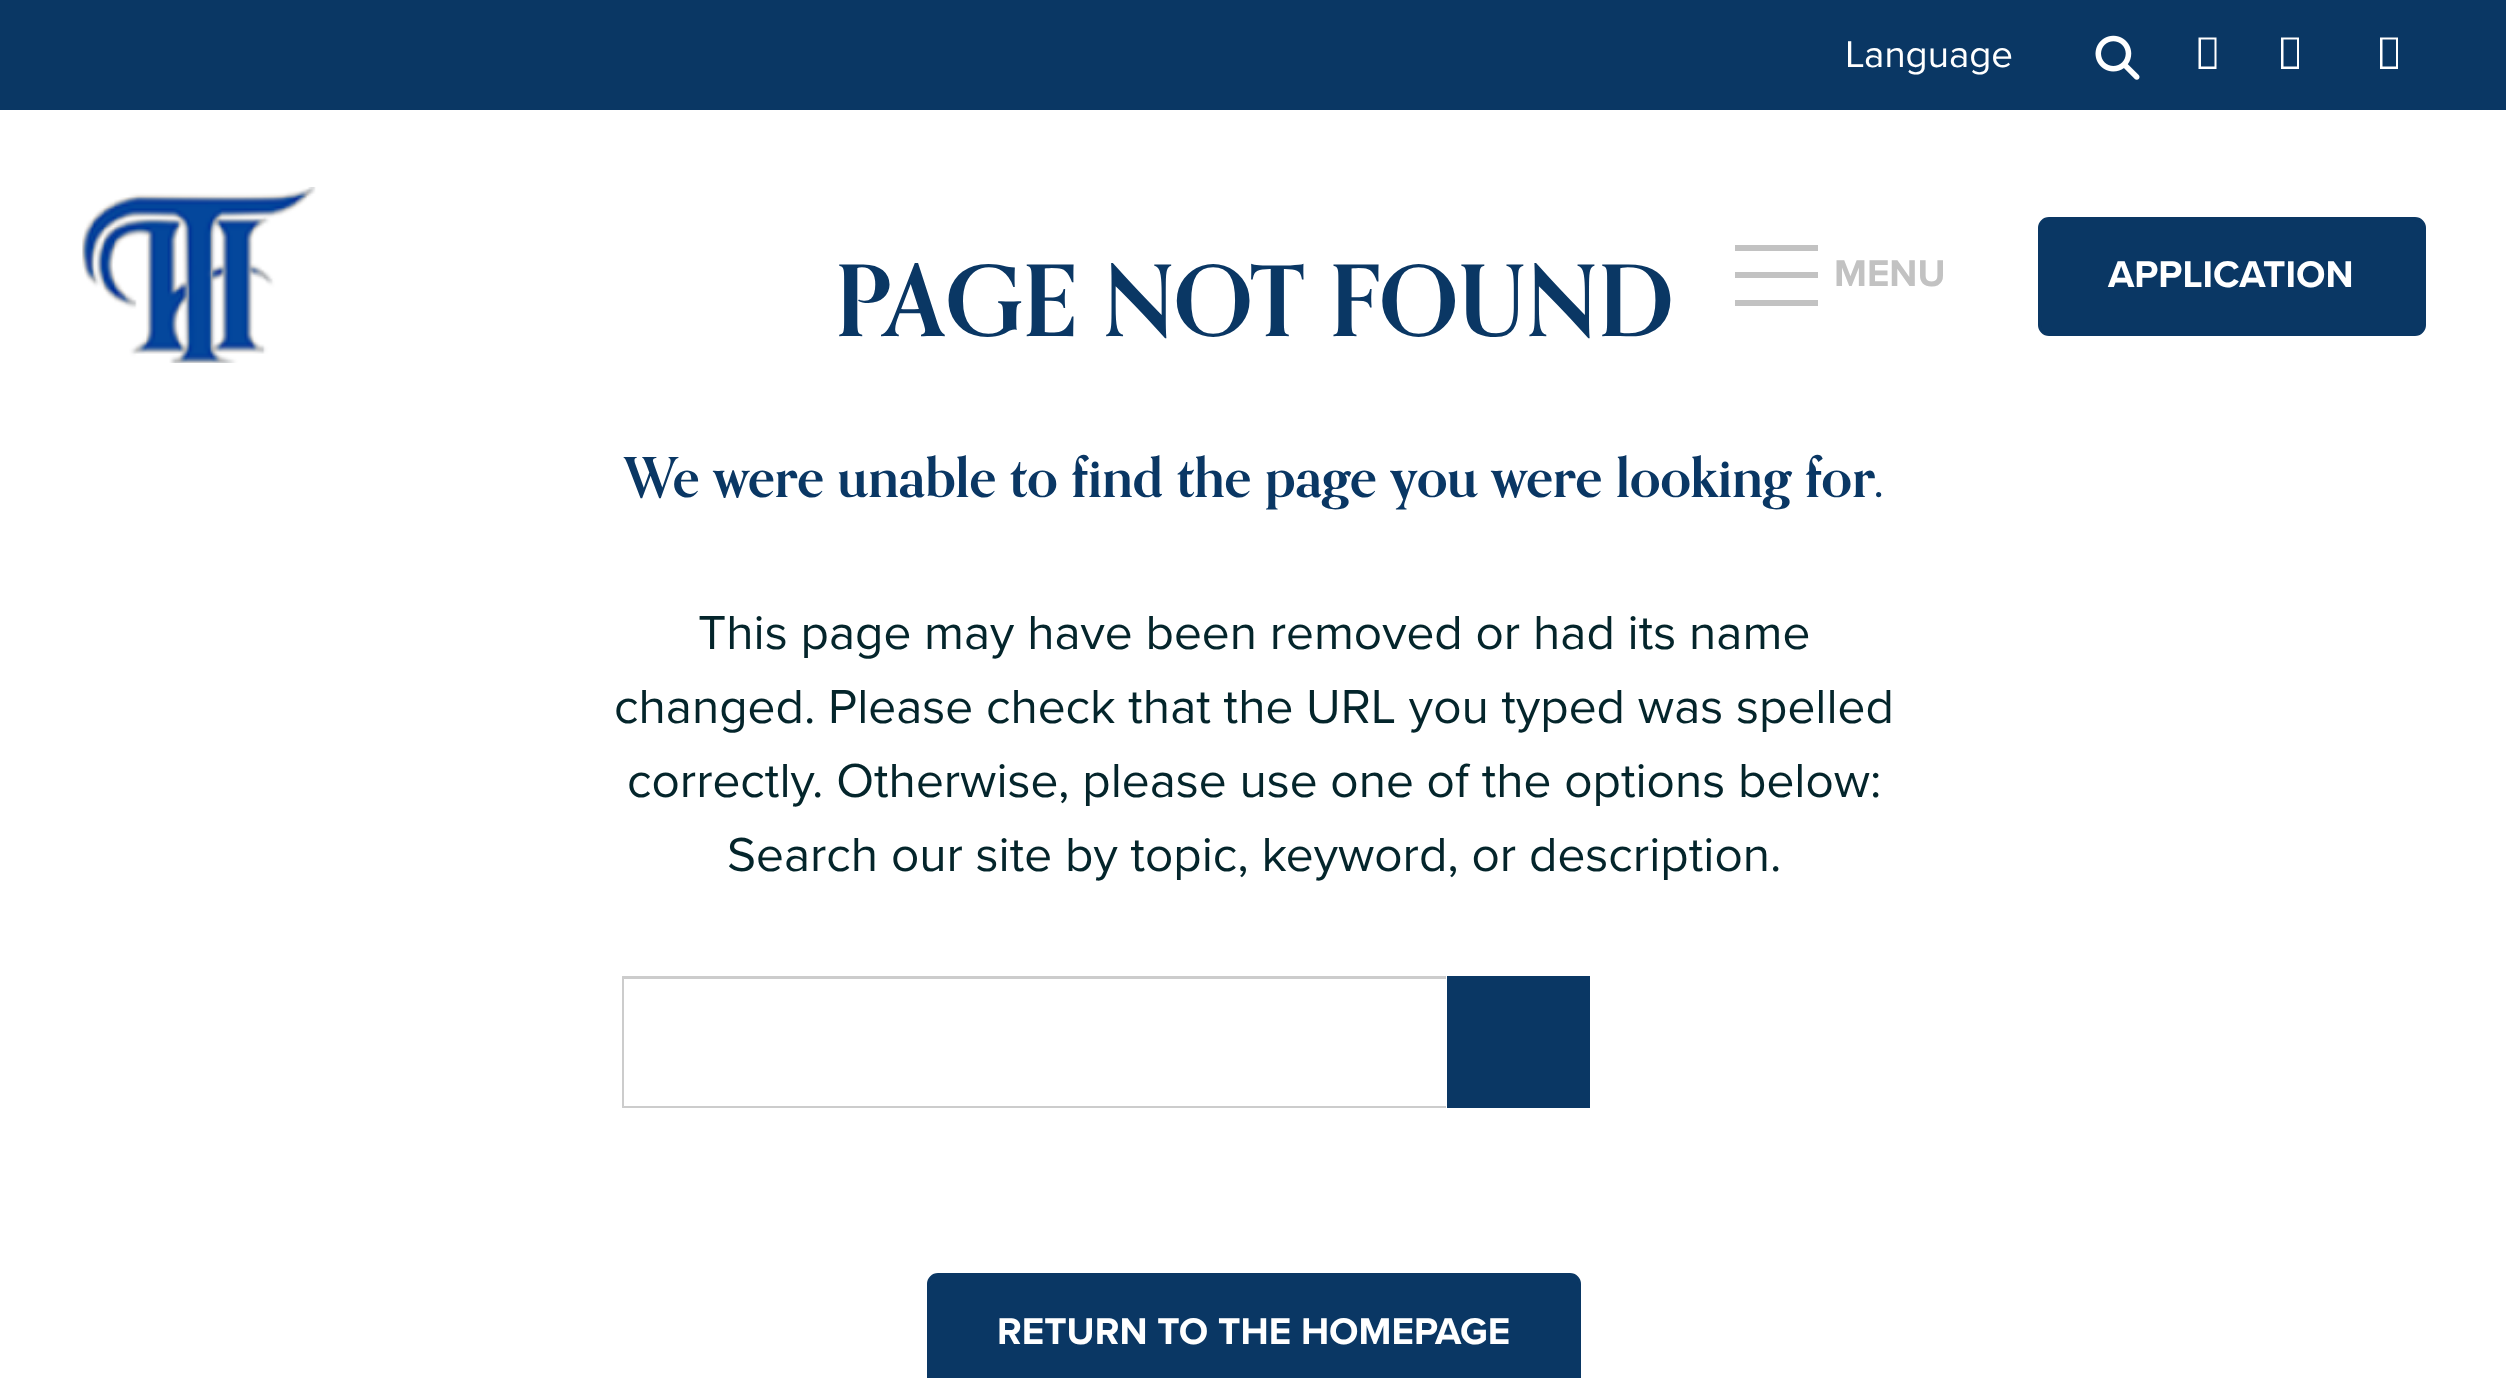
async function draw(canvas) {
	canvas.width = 2506;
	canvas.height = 1378;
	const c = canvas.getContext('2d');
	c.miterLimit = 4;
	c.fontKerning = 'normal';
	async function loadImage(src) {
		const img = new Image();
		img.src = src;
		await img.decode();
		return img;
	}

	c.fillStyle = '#fff';
	c.fillRect(0, 0, 2506, 1378);
	c.fillStyle = '#0a3764';
	c.fillRect(0, 0, 2506, 110);
	c.font = '38.5px Proxima Nova';
	c.fillStyle = '#fff';
	c.fillText('Language', 1845, 67);
	c.drawImage(await loadImage('img1.png'), 2095, 35, 45, 45);
	c.beginPath();
	c.moveTo(2198.5, 69);
	c.lineTo(2198.5, 37.5);
	c.lineTo(2216.5, 37.5);
	c.lineTo(2216.5, 69);
	c.closePath();
	c.moveTo(2201, 66.5);
	c.lineTo(2214.5, 66.5);
	c.lineTo(2214.5, 39.5);
	c.lineTo(2201, 39.5);
	c.closePath();
	c.fill();
	c.beginPath();
	c.moveTo(2281, 69);
	c.lineTo(2281, 37.5);
	c.lineTo(2299, 37.5);
	c.lineTo(2299, 69);
	c.closePath();
	c.moveTo(2283.5, 66.5);
	c.lineTo(2297, 66.5);
	c.lineTo(2297, 39.5);
	c.lineTo(2283.5, 39.5);
	c.closePath();
	c.fill();
	c.beginPath();
	c.moveTo(2380, 69);
	c.lineTo(2380, 37.5);
	c.lineTo(2398, 37.5);
	c.lineTo(2398, 69);
	c.closePath();
	c.moveTo(2382.5, 66.5);
	c.lineTo(2396, 66.5);
	c.lineTo(2396, 39.5);
	c.lineTo(2382.5, 39.5);
	c.closePath();
	c.fill();
	c.drawImage(await loadImage('img2.png'), 82, 187, 234, 176);
	for (const [x, y, w, h, color] of [
		[1735, 245, 83, 6, '#c2c2c2'],
		[1735, 272, 83, 6, '#c2c2c2'],
		[1735, 300, 83, 6, '#c2c2c2'],
	]) {
		c.fillStyle = color;
		c.fillRect(x, y, w, h);
	}
	c.font = 'bold 38.5px Proxima Nova';
	c.fillText('MENU', 1834, 286);
	c.fillStyle = '#0a3764';
	c.beginPath();
	c.roundRect(2039.5, 218.5, 385, 116, 9.5);
	c.fill();
	c.strokeStyle = '#0a3764';
	c.lineWidth = 3;
	c.stroke();
	c.fillStyle = '#fff';
	c.fillText('APPLICATION', 2108, 287);
	c.font = 'bold 98.25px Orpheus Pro';
	c.fillStyle = '#0a3764';
	c.fillText('PAGE NOT FOUND', 835, 336);
	c.font = 'bold 55px Orpheus Pro';
	c.fillText('We were unable to find the page you were looking for.', 624, 497);
	c.font = '49.5px Proxima Nova';
	c.fillStyle = '#04252b';
	for (const [text, x, y] of [
		['This page may have been removed or had its name', 698, 649],
		['changed. Please check that the URL you typed was spelled', 614, 723],
		['correctly. Otherwise, please use one of the options below:', 627, 797],
		['Search our site by topic, keyword, or description.', 727, 871],
	]) {
		c.fillText(text, x, y);
	}
	c.fillStyle = '#ccc';
	c.beginPath();
	c.moveTo(622, 976);
	c.lineTo(1446, 976);
	c.lineTo(1446, 979);
	c.lineTo(624, 979);
	c.closePath();
	c.fill();
	c.beginPath();
	c.moveTo(1446, 1108);
	c.lineTo(622, 1108);
	c.lineTo(624, 1106);
	c.lineTo(1446, 1106);
	c.closePath();
	c.fill();
	c.fillStyle = '#00000033';
	c.beginPath();
	c.moveTo(622, 1108);
	c.lineTo(622, 976);
	c.lineTo(624, 979);
	c.lineTo(624, 1106);
	c.closePath();
	c.fill();
	c.fillStyle = '#0a3764';
	c.fillRect(1447, 976, 143, 132);
	c.beginPath();
	c.roundRect(928.5, 1274.5, 651, 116, 9.5);
	c.fill();
	c.stroke();
	c.font = 'bold 38.5px Proxima Nova';
	c.fillStyle = '#fff';
	c.fillText('RETURN TO THE HOMEPAGE', 997, 1344);
}

draw(document.querySelector('canvas'));
